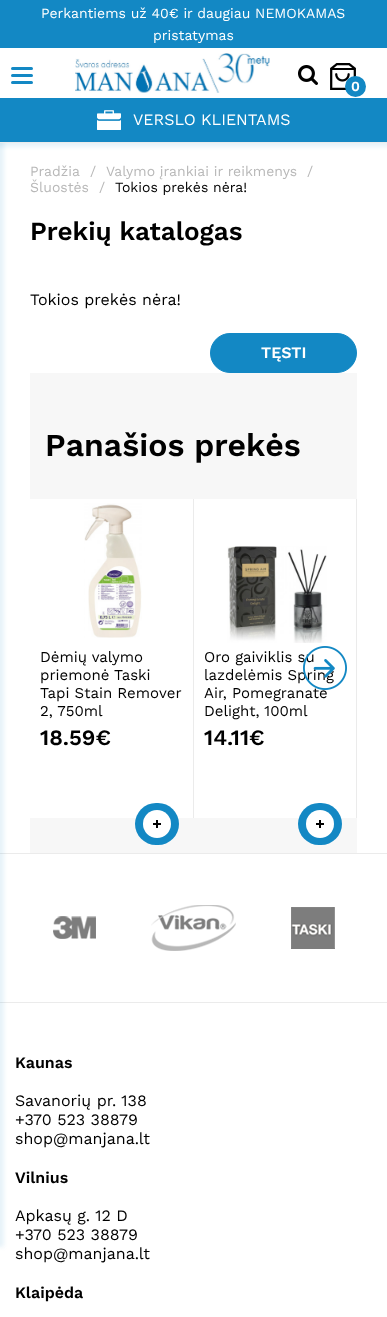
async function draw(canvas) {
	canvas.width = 387;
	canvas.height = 1317;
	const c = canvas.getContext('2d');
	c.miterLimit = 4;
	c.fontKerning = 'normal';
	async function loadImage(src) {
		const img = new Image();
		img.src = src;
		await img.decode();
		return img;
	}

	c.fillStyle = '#fff';
	c.fillRect(0, 0, 387, 1317);
	c.fillStyle = '#ebebeb';
	c.fillRect(0, 853, 387, 1);
	c.fillRect(0, 1002, 387, 1);
	c.fillStyle = '#1388c41a';
	c.filter = 'blur(2px)';
	c.beginPath();
	c.rect(-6, 44, 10, 1203);
	c.fill();
	c.filter = 'none';
	c.filter = 'blur(2px)';
	c.beginPath();
	c.rect(-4, -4, 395, 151);
	c.fill();
	c.filter = 'none';
	for (const [x, y, w, h, color] of [
		[0, 48, 387, 50, '#fff'],
		[0, 142, 387, 1, '#ebebeb'],
		[0, 0, 387, 48, '#1388c4'],
	]) {
		c.fillStyle = color;
		c.fillRect(x, y, w, h);
	}
	c.font = '14px Work Sans';
	c.fillStyle = '#fff';
	c.fillText('Perkantiems už 40€ ir daugiau NEMOKAMAS', 41, 18);
	c.fillText('pristatymas', 153, 40);
	c.fillStyle = '#1388c4';
	c.beginPath();
	c.roundRect(11, 67, 22, 3, 1.5);
	c.fill();
	c.beginPath();
	c.roundRect(11, 74, 22, 3, 1.5);
	c.fill();
	c.beginPath();
	c.roundRect(11, 81, 22, 3, 1.5);
	c.fill();
	c.drawImage(await loadImage('img1.png'), 75, 53, 195, 40);
	c.drawImage(await loadImage('img2.png'), 298, 65, 20, 20);
	c.drawImage(await loadImage('img3.png'), 330, 63, 26, 27);
	c.beginPath();
	c.arc(355.5, 86.5, 10.5, 0, 2 * Math.PI);
	c.fill();
	c.font = '600 14px Work Sans';
	c.fillStyle = '#fff';
	c.fillText('0', 351, 91);
	c.fillStyle = '#1388c4';
	c.fillRect(0, 98, 387, 44);
	c.drawImage(await loadImage('img4.png'), 97, 110, 24, 20);
	c.font = '16px Work Sans';
	c.fillStyle = '#fff';
	c.fillText('VERSLO KLIENTAMS', 133, 125);
	c.font = '14px Work Sans';
	c.fillStyle = '#b8b8b8';
	for (const [text, x, y] of [
		['Pradžia', 30, 176],
		['/', 90, 176],
		['Valymo įrankiai ir reikmenys', 106, 176],
		['/', 307, 176],
		['Šluostės', 30, 192],
		['/', 99, 192],
	]) {
		c.fillText(text, x, y);
	}
	c.fillStyle = '#000';
	c.fillText('Tokios prekės nėra!', 115, 192);
	c.font = '600 26px Work Sans';
	c.fillText('Prekių katalogas', 30, 240);
	c.font = '16px Work Sans';
	c.fillText('Tokios prekės nėra!', 30, 305);
	c.fillStyle = '#1388c4';
	c.beginPath();
	c.roundRect(210.5, 333.5, 146, 39, 19.5);
	c.fill();
	c.strokeStyle = '#1388c4';
	c.stroke();
	c.font = '600 16px Work Sans';
	c.fillStyle = '#fff';
	c.fillText('TĘSTI', 261, 358);
	c.fillStyle = '#f7f7f7';
	c.fillRect(30, 373, 327, 480);
	c.font = '600 32px Work Sans';
	c.fillStyle = '#000';
	c.fillText('Panašios prekės', 45, 456);
	c.fillStyle = '#fff';
	c.fillRect(194, 499, 162, 319);
	c.font = '15px Work Sans';
	c.fillStyle = '#000';
	for (const [text, x, y] of [
		['Oro gaiviklis su', 204, 662],
		['lazdelėmis Spring', 204, 680],
		['Air, Pomegranate', 204, 698],
	]) {
		c.fillText(text, x, y);
	}
	c.drawImage(await loadImage('img5.png'), 303, 646, 44, 44);
	c.fillStyle = '#fff';
	c.fillRect(30, 499, 163, 319);
	c.drawImage(await loadImage('img6.png'), 84, 503, 58, 135);
	c.fillStyle = '#ebebeb';
	c.fillRect(193, 499, 1, 319);
	c.fillStyle = '#000';
	for (const [text, x, y] of [
		['Dėmių valymo', 40, 662],
		['priemonė Taski', 40, 680],
		['Tapi Stain Remover', 40, 698],
		['2, 750ml', 40, 716],
	]) {
		c.fillText(text, x, y);
	}
	c.font = '600 22px Work Sans';
	c.fillText('18.59€', 40, 745);
	c.fillStyle = '#1388c4';
	c.beginPath();
	c.roundRect(135, 803, 44, 42, 21);
	c.fill();
	c.fillStyle = '#fff';
	c.beginPath();
	c.arc(157, 824, 14, 0, 2 * Math.PI);
	c.fill();
	c.fillStyle = '#000';
	c.fillRect(156, 820, 2, 8);
	c.fillRect(153, 823, 8, 2);
	c.drawImage(await loadImage('img7.png'), 227, 546, 100, 97);
	c.fillStyle = '#ebebeb';
	c.fillRect(356, 499, 1, 319);
	c.font = '15px Work Sans';
	c.fillStyle = '#000';
	c.fillText('Delight, 100ml', 204, 716);
	c.font = '600 22px Work Sans';
	c.fillText('14.11€', 204, 745);
	c.fillStyle = '#1388c4';
	c.beginPath();
	c.roundRect(298, 803, 44, 42, 21);
	c.fill();
	c.fillStyle = '#fff';
	c.beginPath();
	c.arc(320, 824, 14, 0, 2 * Math.PI);
	c.fill();
	c.fillStyle = '#000';
	c.fillRect(319, 820, 2, 8);
	c.fillRect(316, 823, 8, 2);
	c.drawImage(await loadImage('img8.png'), 53, 916, 43, 23);
	c.drawImage(await loadImage('img9.png'), 151, 905, 85, 46);
	c.drawImage(await loadImage('img10.png'), 291, 907, 44, 42);
	c.font = '600 16px Work Sans';
	c.fillText('Kaunas', 15, 1068);
	c.font = '16px Work Sans';
	for (const [text, x, y] of [
		['Savanorių pr. 138', 15, 1106],
		['+370 523 38879', 15, 1125],
		['shop@manjana.lt', 15, 1144],
	]) {
		c.fillText(text, x, y);
	}
	c.font = '600 16px Work Sans';
	c.fillText('Vilnius', 15, 1183);
	c.font = '16px Work Sans';
	for (const [text, x, y] of [
		['Apkasų g. 12 D', 15, 1221],
		['+370 523 38879', 15, 1240],
		['shop@manjana.lt', 15, 1259],
	]) {
		c.fillText(text, x, y);
	}
	c.font = '600 16px Work Sans';
	c.fillText('Klaipėda', 15, 1298);
}

draw(document.querySelector('canvas'));
